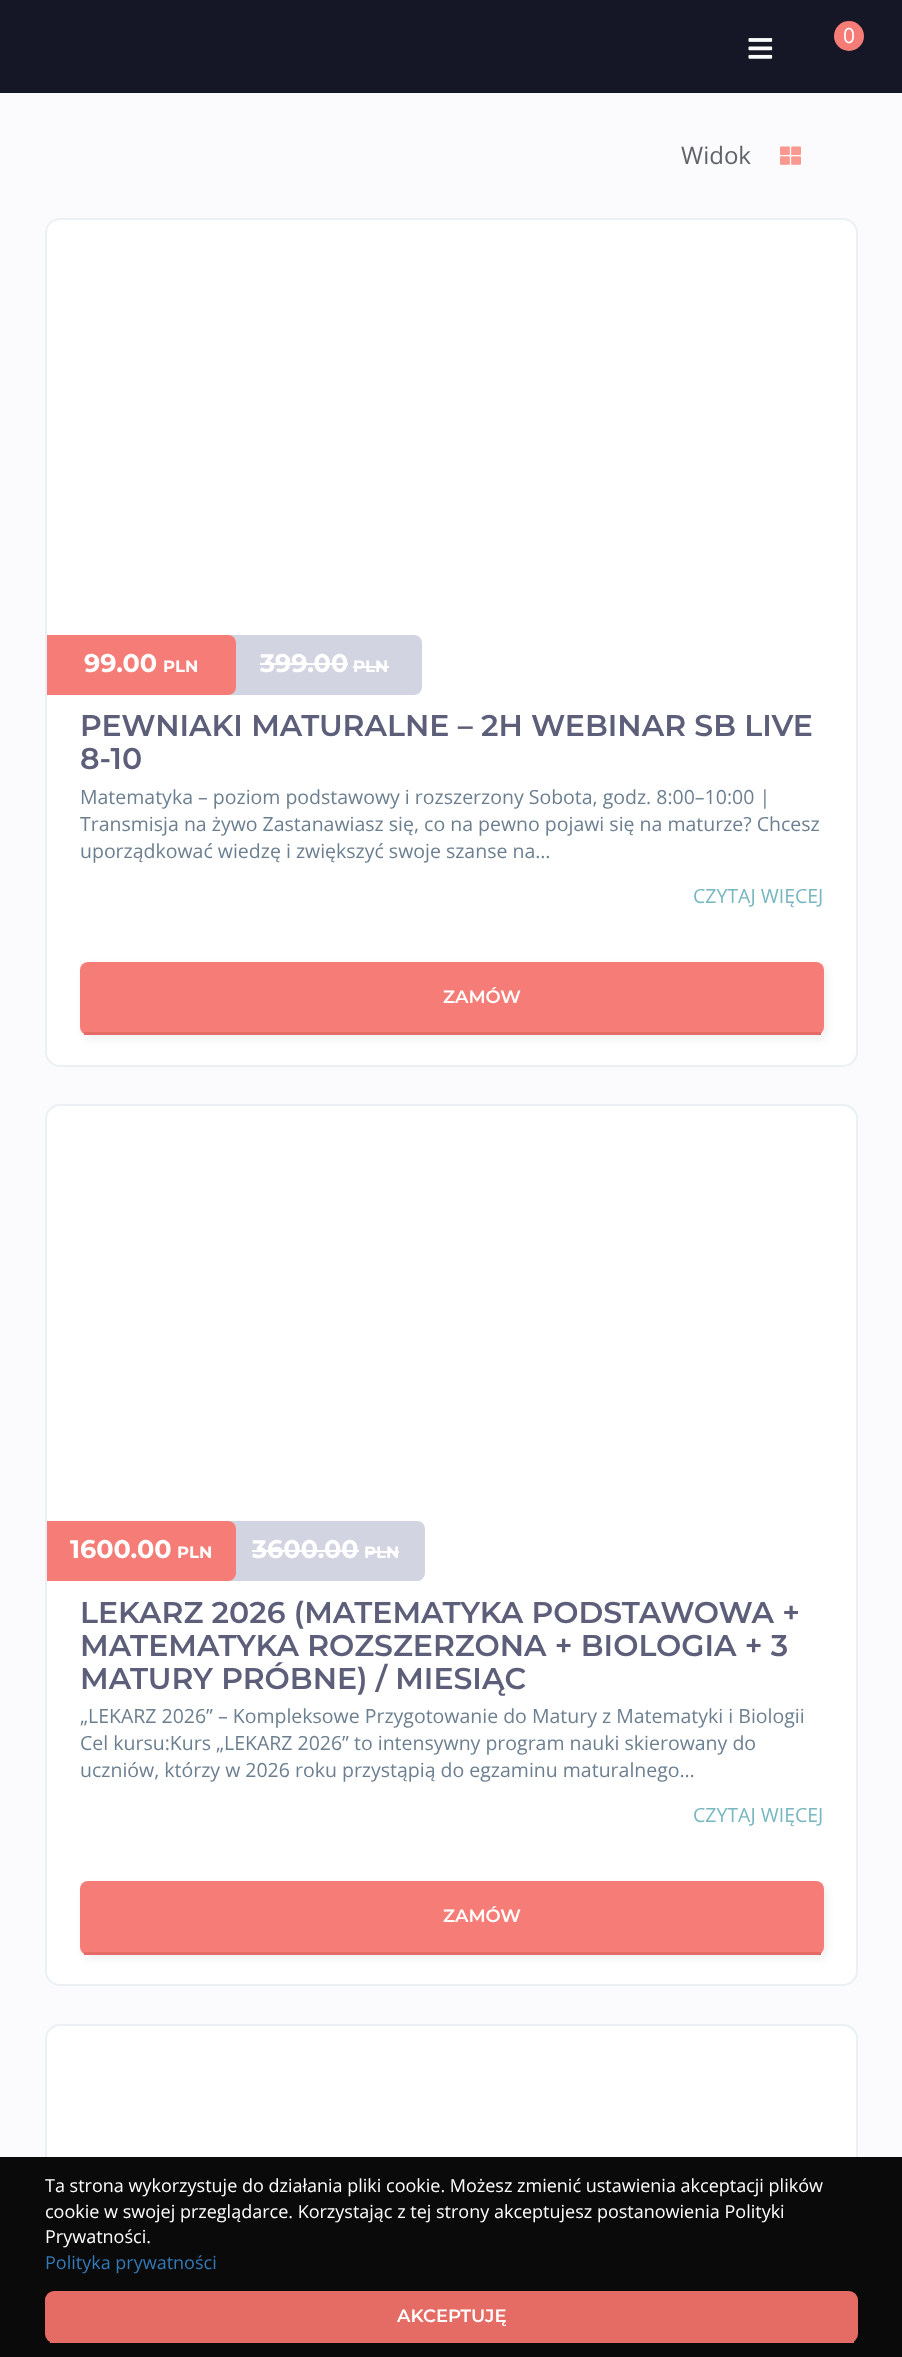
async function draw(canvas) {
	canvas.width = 902;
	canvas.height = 2357;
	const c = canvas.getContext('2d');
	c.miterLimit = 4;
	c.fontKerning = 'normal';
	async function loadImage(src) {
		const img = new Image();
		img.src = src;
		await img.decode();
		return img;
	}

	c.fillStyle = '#fbfbfd';
	c.fillRect(0, 0, 902, 2357);
	c.fillStyle = '#151726';
	c.fillRect(0, 0, 902, 93);
	c.fillStyle = '#f67d77';
	c.beginPath();
	c.arc(849, 36, 15, 0, 2 * Math.PI);
	c.fill();
	c.font = '21px Open Sans';
	c.fillStyle = '#fff';
	c.fillText('0', 843, 43);
	c.drawImage(await loadImage('img1.png'), 748, 38, 25, 21);
	c.font = '24px Open Sans';
	c.fillStyle = '#5f6368';
	c.fillText('Widok', 681, 164);
	c.drawImage(await loadImage('img2.png'), 780, 146, 21, 19);
	c.fillStyle = '#fff';
	c.beginPath();
	c.roundRect(46, 219, 811, 847, 14);
	c.fill();
	c.strokeStyle = '#eaf0f3';
	c.lineWidth = 2;
	c.stroke();
	c.fillStyle = '#d3d4e1';
	c.beginPath();
	c.roundRect(227, 635, 195, 60, [0, 8, 8, 0]);
	c.fill();
	c.fillStyle = '#f67d77';
	c.beginPath();
	c.roundRect(47, 635, 189, 60, [0, 8, 8, 0]);
	c.fill();
	c.font = 'bold 25.5px Montserrat';
	c.fillStyle = '#fff';
	c.fillText('99.00', 84, 672);
	c.font = 'bold 16.5px Montserrat';
	c.fillText('PLN', 163, 672);
	c.font = 'bold 25.5px Montserrat';
	c.fillText('399.00', 260, 672);
	c.fillRect(260, 663, 88, 2);
	c.font = 'bold 16.5px Montserrat';
	c.fillText('PLN', 353, 672);
	c.fillRect(353, 666, 36, 2);
	c.fillStyle = '#0000000f';
	c.filter = 'blur(4px)';
	c.beginPath();
	c.roundRect(83, 966, 744, 74, 8);
	c.fill();
	c.filter = 'none';
	c.fillStyle = '#f67d77';
	c.beginPath();
	c.roundRect(80, 962, 744, 73, 8);
	c.fill();
	c.fillStyle = '#e56b65';
	c.fillRect(84, 1032, 737, 3);
	c.font = '600 18px Montserrat';
	c.fillStyle = '#fff';
	c.fillText('ZAMÓW', 443, 1003);
	c.font = '600 30px Montserrat';
	c.fillStyle = '#5d5e79';
	c.fillText('PEWNIAKI MATURALNE – 2H WEBINAR SB LIVE', 80, 736);
	c.fillText('8-10', 80, 769);
	c.font = '19.5px Open Sans';
	c.fillStyle = '#6c7f90';
	for (const [text, x, y] of [
		['Matematyka – poziom podstawowy i rozszerzony Sobota, godz. 8:00–10:00 |', 80, 804],
		['Transmisja na żywo Zastanawiasz się, co na pewno pojawi się na maturze? Chcesz', 80, 831],
		['uporządkować wiedzę i zwiększyć swoje szanse na…', 80, 858],
	]) {
		c.fillText(text, x, y);
	}
	c.fillStyle = '#77b7bf';
	c.fillText('CZYTAJ WIĘCEJ', 693, 903);
	c.fillStyle = '#fff';
	c.beginPath();
	c.roundRect(46, 1105, 811, 880, 14);
	c.fill();
	c.stroke();
	c.fillStyle = '#d3d4e1';
	c.beginPath();
	c.roundRect(227, 1521, 198, 60, [0, 8, 8, 0]);
	c.fill();
	c.fillStyle = '#f67d77';
	c.beginPath();
	c.roundRect(47, 1521, 189, 60, [0, 8, 8, 0]);
	c.fill();
	c.font = 'bold 25.5px Montserrat';
	c.fillStyle = '#fff';
	c.fillText('1600.00', 70, 1558);
	c.font = 'bold 16.5px Montserrat';
	c.fillText('PLN', 177, 1558);
	c.font = 'bold 25.5px Montserrat';
	c.fillText('3600.00', 252, 1558);
	c.fillRect(252, 1550, 107, 2);
	c.font = 'bold 16.5px Montserrat';
	c.fillText('PLN', 364, 1558);
	c.fillRect(365, 1551, 34, 2);
	c.fillStyle = '#0000000f';
	c.filter = 'blur(4px)';
	c.beginPath();
	c.roundRect(83, 1886, 744, 73, 8);
	c.fill();
	c.filter = 'none';
	c.fillStyle = '#f67d77';
	c.beginPath();
	c.roundRect(80, 1881, 744, 74, 8);
	c.fill();
	c.fillStyle = '#e56b65';
	c.fillRect(84, 1952, 737, 3);
	c.font = '600 18px Montserrat';
	c.fillStyle = '#fff';
	c.fillText('ZAMÓW', 443, 1922);
	c.font = '600 30px Montserrat';
	c.fillStyle = '#5d5e79';
	for (const [text, x, y] of [
		['LEKARZ 2026 (MATEMATYKA PODSTAWOWA +', 80, 1623],
		['MATEMATYKA ROZSZERZONA + BIOLOGIA + 3', 80, 1656],
		['MATURY PRÓBNE) / MIESIĄC', 80, 1689],
	]) {
		c.fillText(text, x, y);
	}
	c.font = '19.5px Open Sans';
	c.fillStyle = '#6c7f90';
	for (const [text, x, y] of [
		['„LEKARZ 2026” – Kompleksowe Przygotowanie do Matury z Matematyki i Biologii', 80, 1723],
		['Cel kursu:Kurs „LEKARZ 2026” to intensywny program nauki skierowany do', 80, 1750],
		['uczniów, którzy w 2026 roku przystąpią do egzaminu maturalnego…', 80, 1777],
	]) {
		c.fillText(text, x, y);
	}
	c.fillStyle = '#77b7bf';
	c.fillText('CZYTAJ WIĘCEJ', 693, 1822);
	c.fillStyle = '#fff';
	c.beginPath();
	c.roundRect(46, 2025, 811, 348, 14);
	c.fill();
	c.stroke();
	c.fillStyle = '#0a0a0a';
	c.fillRect(0, 2157, 902, 200);
	c.font = '18px Open Sans';
	c.fillStyle = '#fff';
	for (const [text, x, y] of [
		['Ta strona wykorzystuje do działania pliki cookie. Możesz zmienić ustawienia akceptacji plików', 45, 2192],
		['cookie w swojej przeglądarce. Korzystając z tej strony akceptujesz postanowienia Polityki', 45, 2218],
		['Prywatności.', 45, 2243],
	]) {
		c.fillText(text, x, y);
	}
	c.fillStyle = '#337ab7';
	c.fillText('Polityka prywatności', 45, 2269);
	c.fillStyle = '#e56b65';
	c.beginPath();
	c.roundRect(45, 2291, 813, 52, 9);
	c.fill();
	c.fillRect(50, 2341, 804, 2);
	c.font = '600 18px Montserrat';
	c.fillStyle = '#fff';
	c.fillText('AKCEPTUJĘ', 397, 2322);
}

draw(document.querySelector('canvas'));
